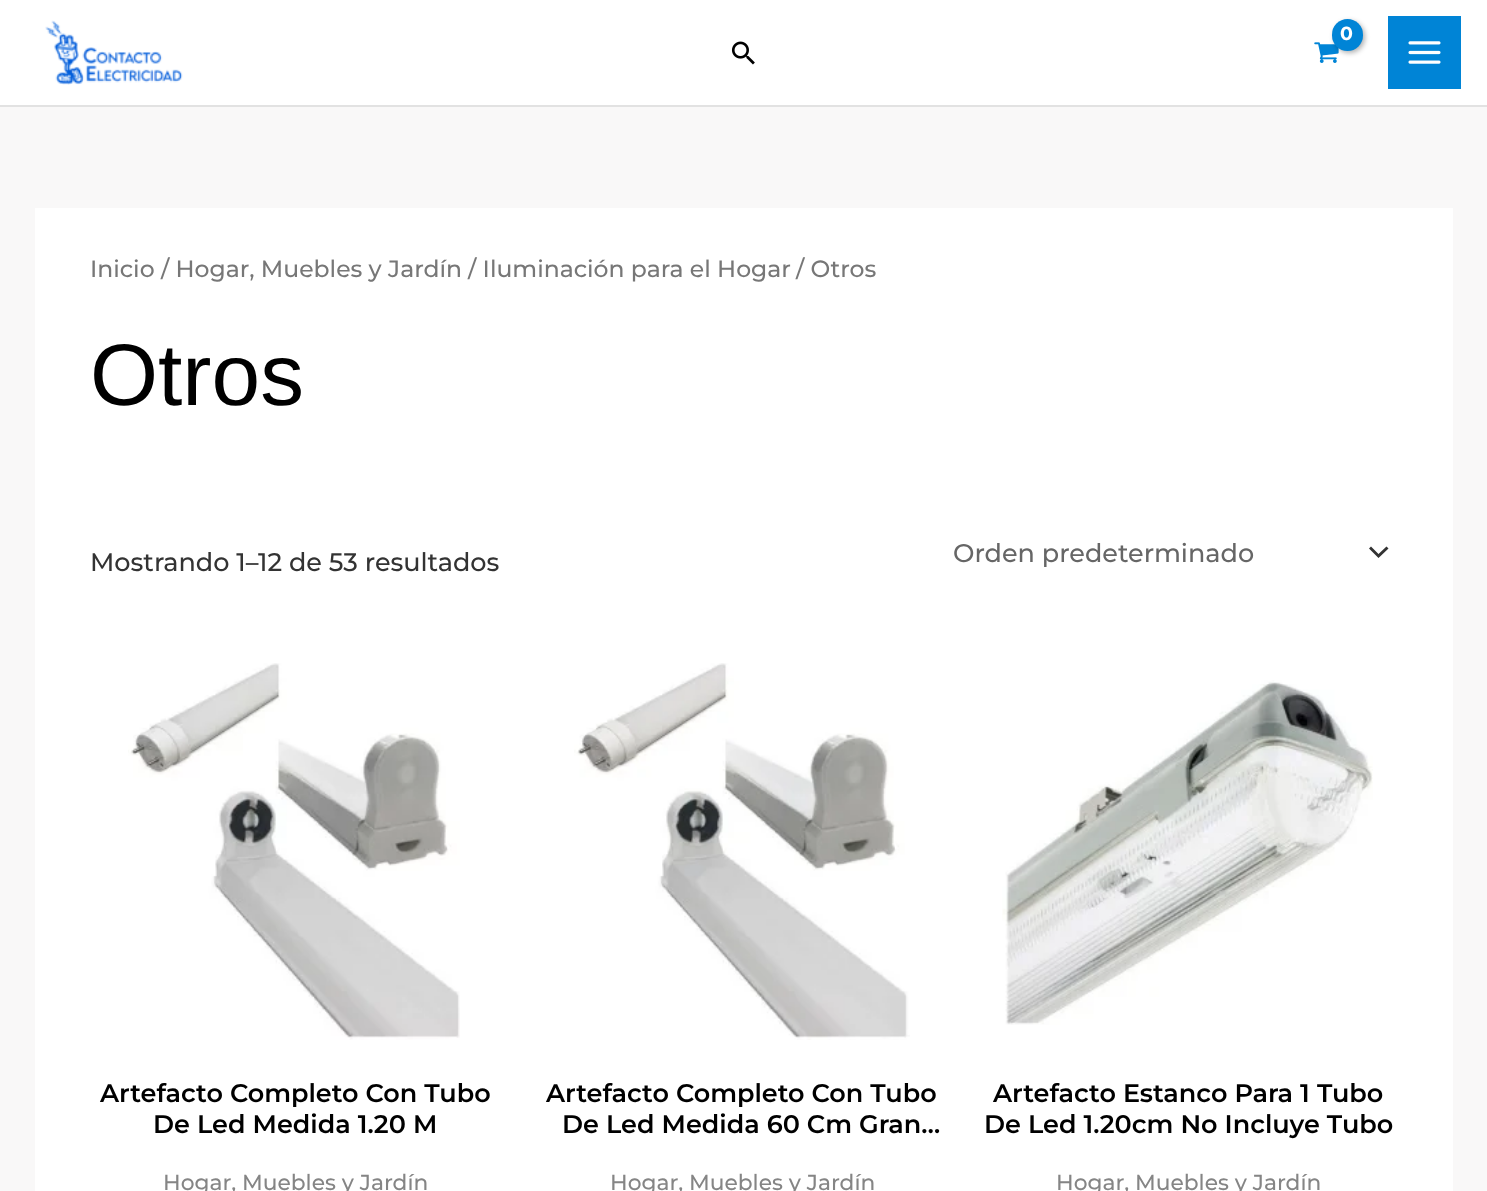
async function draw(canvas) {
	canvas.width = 1487;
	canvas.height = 1191;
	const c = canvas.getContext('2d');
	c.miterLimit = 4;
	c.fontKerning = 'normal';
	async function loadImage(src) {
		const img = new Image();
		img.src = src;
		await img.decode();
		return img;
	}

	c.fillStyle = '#f9f8f8';
	c.fillRect(0, 0, 1487, 1191);
	c.fillStyle = '#fff';
	c.fillRect(0, 0, 1487, 105);
	c.fillStyle = '#e2e2e2';
	c.fillRect(0, 105, 1487, 2);
	c.drawImage(await loadImage('img1.png'), 45, 20, 138, 65);
	c.drawImage(await loadImage('img2.png'), 1314, 42, 25, 21);
	c.fillStyle = '#0000004d';
	c.filter = 'blur(2.5px)';
	c.beginPath();
	c.roundRect(1334, 21, 31, 32, 15.5);
	c.fill();
	c.filter = 'none';
	c.fillStyle = '#0084d6';
	c.beginPath();
	c.roundRect(1332, 19, 31, 32, 15.5);
	c.fill();
	c.letterSpacing = '-1px';
	c.font = 'bold 19px Montserrat';
	c.fillStyle = '#fff';
	c.fillText('0', 1340, 40);
	c.fillStyle = '#0084d6';
	c.fillRect(1388, 16, 73, 73);
	c.drawImage(await loadImage('img3.png'), 1408, 41, 33, 23);
	c.drawImage(await loadImage('img4.png'), 731, 41, 24, 24);
	c.fillStyle = '#fff';
	c.fillRect(35, 208, 1418, 983);
	c.letterSpacing = '0px';
	c.font = '500 23.5px Montserrat';
	c.fillStyle = '#777';
	for (const [text, x, y] of [
		['Inicio / Hogar, Muebles y Jardín', 90, 277],
		['/ Iluminación para el Hogar', 468, 277],
		['/ Otros', 796, 277],
	]) {
		c.fillText(text, x, y);
	}
	c.font = '87.5px Liberation Sans';
	c.fillStyle = '#000';
	c.fillText('Otros', 90, 405);
	c.font = '500 25.5px Montserrat';
	c.fillStyle = '#333';
	c.fillText('Mostrando 1–12 de 53 resultados', 90, 571);
	c.beginPath();
	c.moveTo(1369, 548.5);
	c.lineTo(1378.5, 558);
	c.lineTo(1388.5, 548.5);
	c.lineTo(1386.5, 546.5);
	c.lineTo(1378.5, 554);
	c.lineTo(1371, 546.5);
	c.closePath();
	c.fill();
	c.fillStyle = '#666';
	c.fillText('Orden predeterminado', 953, 562);
	c.drawImage(await loadImage('img5.png'), 128, 663, 332, 377);
	c.font = '600 25.5px Montserrat';
	c.fillStyle = '#000';
	c.fillText('Artefacto Completo Con Tubo', 100, 1102);
	c.fillText('De Led Medida 1.20 M', 153, 1133);
	c.font = '500 21.75px Montserrat';
	c.fillStyle = '#858585';
	c.fillText('Hogar, Muebles y Jardín', 163, 1190);
	c.drawImage(await loadImage('img6.png'), 574, 663, 336, 377);
	c.font = '600 25.5px Montserrat';
	c.fillStyle = '#000';
	c.fillText('Artefacto Completo Con Tubo', 546, 1102);
	c.fillText('De Led Medida 60 Cm Gran…', 562, 1133);
	c.font = '500 21.75px Montserrat';
	c.fillStyle = '#858585';
	c.fillText('Hogar, Muebles y Jardín', 610, 1190);
	c.drawImage(await loadImage('img7.png'), 1002, 680, 371, 345);
	c.font = '600 25.5px Montserrat';
	c.fillStyle = '#000';
	c.fillText('Artefacto Estanco Para 1 Tubo', 993, 1102);
	c.fillText('De Led 1.20cm No Incluye Tubo', 984, 1133);
	c.font = '500 21.75px Montserrat';
	c.fillStyle = '#858585';
	c.fillText('Hogar, Muebles y Jardín', 1056, 1190);
}

draw(document.querySelector('canvas'));
